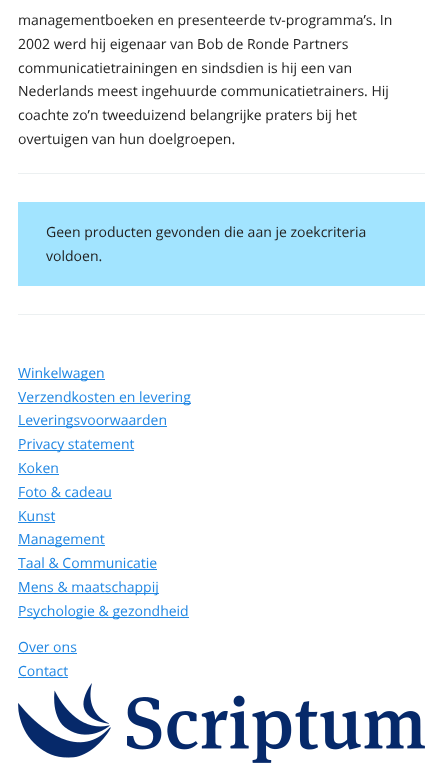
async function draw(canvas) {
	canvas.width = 443;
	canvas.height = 768;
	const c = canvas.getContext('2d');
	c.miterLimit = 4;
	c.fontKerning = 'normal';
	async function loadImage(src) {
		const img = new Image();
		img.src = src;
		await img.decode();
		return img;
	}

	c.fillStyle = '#fff';
	c.fillRect(0, 0, 443, 768);
	c.font = '14px Open Sans';
	c.fillStyle = '#222';
	for (const [text, x, y] of [
		['managementboeken en presenteerde tv-programma’s. In', 18, 25],
		['2002 werd hij eigenaar van Bob de Ronde Partners', 18, 49],
		['communicatietrainingen en sindsdien is hij een van', 18, 73],
		['Nederlands meest ingehuurde communicatietrainers. Hij', 18, 96],
		['coachte zo’n tweeduizend belangrijke praters bij het', 18, 120],
		['overtuigen van hun doelgroepen.', 18, 144],
	]) {
		c.fillText(text, x, y);
	}
	c.fillStyle = '#ecf0f1';
	c.fillRect(18, 173, 407, 1);
	c.fillStyle = '#a2e4ff';
	c.fillRect(18, 202, 407, 84);
	c.fillStyle = '#222';
	c.fillText('Geen producten gevonden die aan je zoekcriteria', 46, 237);
	c.fillText('voldoen.', 46, 261);
	c.fillStyle = '#ecf0f1';
	c.fillRect(18, 314, 407, 1);
	c.fillStyle = '#2187e3';
	c.fillRect(18, 379, 87, 1);
	c.fillText('Winkelwagen', 18, 378);
	c.fillRect(18, 403, 173, 1);
	c.fillText('Verzendkosten en levering', 18, 402);
	c.fillRect(18, 426, 149, 1);
	c.fillText('Leveringsvoorwaarden', 18, 425);
	c.fillRect(18, 450, 116, 1);
	c.fillText('Privacy statement', 18, 449);
	c.fillText('Koken', 18, 473);
	c.fillRect(18, 474, 41, 1);
	c.fillText('Foto & cadeau', 18, 497);
	c.fillRect(18, 498, 94, 1);
	c.fillText('Kunst', 18, 521);
	c.fillRect(18, 522, 37, 1);
	c.fillRect(18, 545, 87, 1);
	c.fillText('Management', 18, 544);
	c.fillText('Taal & Communicatie', 18, 568);
	c.fillRect(18, 569, 139, 1);
	c.fillRect(18, 593, 141, 1);
	c.fillText('Mens & maatschappij', 18, 592);
	c.fillRect(18, 617, 171, 1);
	c.fillText('Psychologie & gezondheid', 18, 616);
	c.fillText('Over ons', 18, 652);
	c.fillRect(18, 653, 59, 1);
	c.fillText('Contact', 18, 676);
	c.fillRect(18, 677, 50, 1);
	c.drawImage(await loadImage('img1.png'), 18, 683, 407, 80);
}

draw(document.querySelector('canvas'));
